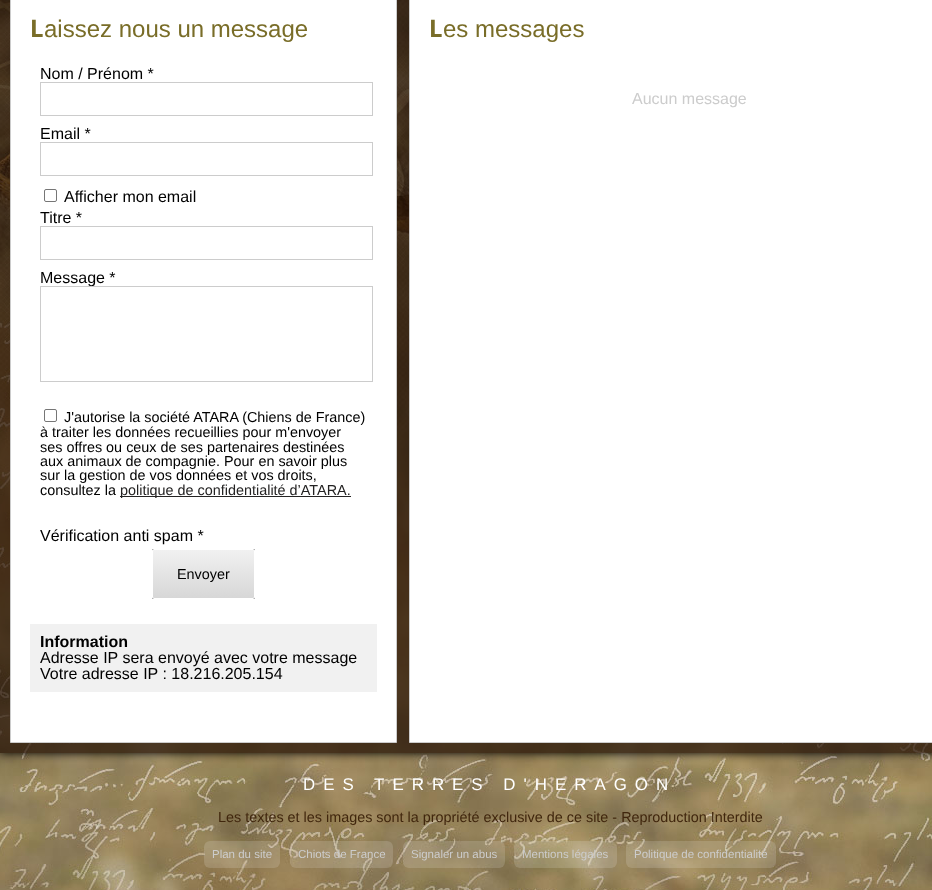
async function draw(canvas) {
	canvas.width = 932;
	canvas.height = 890;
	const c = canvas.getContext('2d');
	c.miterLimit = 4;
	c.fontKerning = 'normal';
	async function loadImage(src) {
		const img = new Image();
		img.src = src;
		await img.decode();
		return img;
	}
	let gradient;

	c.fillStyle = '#fff';
	c.fillRect(0, 0, 932, 890);
	c.drawImage(await loadImage('img1.png'), 0, 0, 932, 890);
	c.save();
	c.beginPath();
	c.rect(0, 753, 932, 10);
	c.clip();
	c.fillStyle = '#000';
	c.filter = 'blur(5px)';
	c.beginPath();
	c.rect(0, -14, 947, 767);
	c.fill();
	c.filter = 'none';
	c.restore();
	c.fillStyle = '#220e02b3';
	c.fillRect(0, 0, 932, 753);
	c.fillStyle = '#fff';
	c.beginPath();
	c.rect(10.5, -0.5, 386, 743);
	c.fill();
	c.strokeStyle = '#ccc';
	c.stroke();
	c.font = 'bold 24px Noto Sans';
	c.fillStyle = '#796d28';
	c.fillText('L', 30, 37);
	c.font = '24px Liberation Sans';
	c.fillText('aissez nous un message', 44, 37);
	c.font = '16px Liberation Sans';
	c.fillStyle = '#000';
	c.fillText('Nom / Prénom *', 40, 79);
	c.strokeRect(40.5, 82.5, 332, 33);
	c.fillText('Email *', 40, 139);
	c.strokeRect(40.5, 142.5, 332, 33);
	c.beginPath();
	c.roundRect(44.5, 189.5, 12, 12, 1.5);
	c.strokeStyle = '#767676';
	c.stroke();
	c.fillText('Afficher mon email', 64, 202);
	c.fillText('Titre *', 40, 223);
	c.strokeStyle = '#ccc';
	c.strokeRect(40.5, 226.5, 332, 33);
	c.fillText('Message *', 40, 283);
	c.strokeRect(40.5, 286.5, 332, 95);
	c.beginPath();
	c.roundRect(44.5, 409.5, 12, 12, 1.5);
	c.strokeStyle = '#767676';
	c.stroke();
	c.font = '14.4px Liberation Sans';
	for (const [text, x, y] of [
		['J\'autorise la société ATARA (Chiens de France)', 64, 422],
		['à traiter les données recueillies pour m\'envoyer', 40, 437],
		['ses offres ou ceux de ses partenaires destinées', 40, 452],
		['aux animaux de compagnie. Pour en savoir plus', 40, 466],
		['sur la gestion de vos données et vos droits,', 40, 480],
		['consultez la', 40, 495],
	]) {
		c.fillText(text, x, y);
	}
	c.fillStyle = '#242323';
	c.fillRect(120, 496, 231, 1);
	c.fillText('politique de confidentialité d’ATARA.', 120, 495);
	c.font = '16px Liberation Sans';
	c.fillStyle = '#000';
	c.fillText('Vérification anti spam *', 40, 541);
	c.filter = 'blur(0.5px)';
	c.beginPath();
	c.roundRect(152, 549, 103, 50, 2);
	c.fill();
	c.filter = 'none';
	c.save();
	c.beginPath();
	c.roundRect(152, 549, 103, 50, 2);
	c.clip();
	gradient = c.createLinearGradient(204, 550, 204, 598);
	gradient.addColorStop(0, '#f1f1f1');
	gradient.addColorStop(1, '#d7d7d7');
	c.fillStyle = gradient;
	c.fillRect(152, 550, 103, 48);
	c.restore();
	c.beginPath();
	c.roundRect(152.5, 549.5, 102, 49, 1.5);
	c.strokeStyle = '#fff';
	c.stroke();
	c.font = '14.4px Liberation Sans';
	c.fillText('Envoyer', 177, 579);
	c.fillStyle = '#f1f1f1';
	c.fillRect(30, 624, 347, 68);
	c.font = 'bold 16px Liberation Sans';
	c.fillStyle = '#000';
	c.fillText('Information', 40, 647);
	c.font = '16px Liberation Sans';
	c.fillText('Adresse IP sera envoyé avec votre message', 40, 663);
	c.fillText('Votre adresse IP : 18.216.205.154', 40, 679);
	c.fillStyle = '#fff';
	c.beginPath();
	c.rect(409.5, -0.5, 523, 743);
	c.fill();
	c.strokeStyle = '#ccc';
	c.stroke();
	c.font = 'bold 24px Noto Sans';
	c.fillStyle = '#796d28';
	c.fillText('L', 429, 37);
	c.font = '24px Liberation Sans';
	c.fillText('es messages', 443, 37);
	c.font = '16px Liberation Sans';
	c.fillStyle = '#ccc';
	c.fillText('Aucun message', 632, 104);
	c.letterSpacing = '8px';
	c.font = '16.9px Liberation Sans';
	c.fillStyle = '#fff';
	c.fillText('DES TERRES D\'HERAGON', 303, 790);
	c.letterSpacing = '0px';
	c.font = '14.4px Liberation Sans';
	c.fillStyle = '#40260d';
	c.fillText('Les textes et les images sont la propriété exclusive de ce site - Reproduction Interdite', 218, 822);
	c.fillStyle = '#ffffff26';
	c.beginPath();
	c.roundRect(204, 841, 76, 27, 6);
	c.fill();
	c.font = '11.5px Liberation Sans';
	c.fillStyle = '#ccc';
	c.fillText('Plan du site', 212, 858);
	c.fillStyle = '#ffffff26';
	c.beginPath();
	c.roundRect(290, 841, 103, 27, 6);
	c.fill();
	c.fillStyle = '#ccc';
	c.fillText('Chiots de France', 298, 858);
	c.fillStyle = '#ffffff26';
	c.beginPath();
	c.roundRect(403, 841, 102, 27, 6);
	c.fill();
	c.fillStyle = '#ccc';
	c.fillText('Signaler un abus', 411, 858);
	c.fillStyle = '#ffffff26';
	c.beginPath();
	c.roundRect(514, 841, 103, 27, 6);
	c.fill();
	c.fillStyle = '#ccc';
	c.fillText('Mentions légales', 522, 858);
	c.fillStyle = '#ffffff26';
	c.beginPath();
	c.roundRect(626, 841, 150, 27, 6);
	c.fill();
	c.fillStyle = '#ccc';
	c.fillText('Politique de confidentialité', 634, 858);
}

draw(document.querySelector('canvas'));
